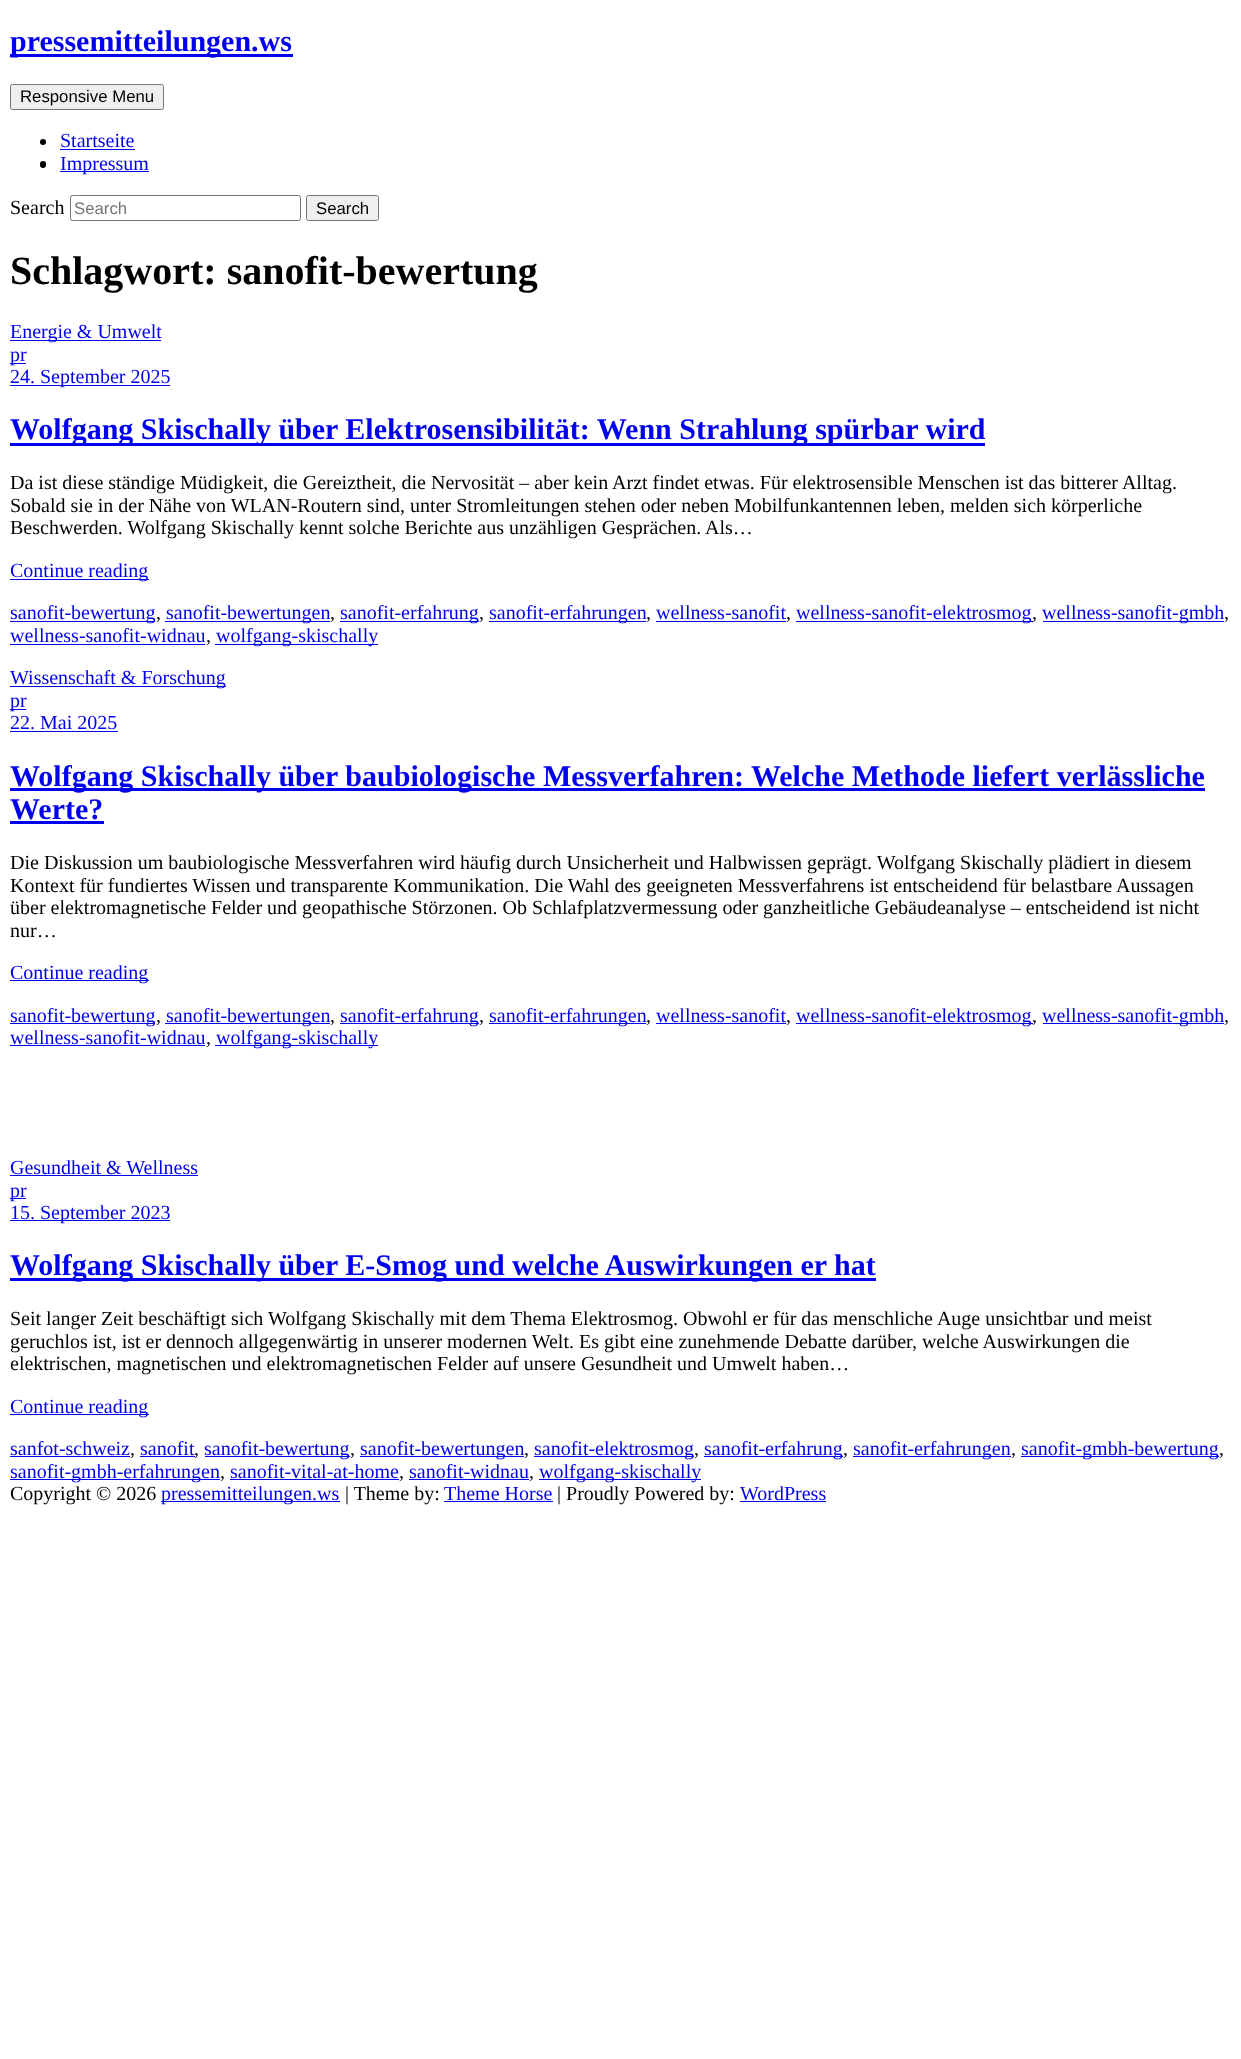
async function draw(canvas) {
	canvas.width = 1241;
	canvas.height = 2059;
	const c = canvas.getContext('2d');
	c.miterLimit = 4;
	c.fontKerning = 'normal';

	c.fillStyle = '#fff';
	c.fillRect(0, 0, 1241, 2059);
	c.fillStyle = '#00e';
	c.fillRect(10, 54, 283, 3);
	c.font = 'bold 30px Liberation Serif';
	c.fillText('pressemitteilungen.ws', 10, 51);
	c.fillStyle = '#efefef';
	c.beginPath();
	c.roundRect(10.5, 84.5, 153, 25, 2);
	c.fill();
	c.strokeStyle = '#767676';
	c.stroke();
	c.font = '16.75px Liberation Sans';
	c.fillStyle = '#000';
	c.fillText('Responsive Menu', 20, 102);
	c.beginPath();
	c.arc(43, 142, 3, 0, 2 * Math.PI);
	c.fill();
	c.font = '20px Liberation Serif';
	c.fillStyle = '#00e';
	c.fillText('Startseite', 60, 147);
	c.fillRect(60, 149, 75, 1);
	c.fillStyle = '#000';
	c.beginPath();
	c.roundRect(40, 161, 6, 7, 3);
	c.fill();
	c.fillStyle = '#00e';
	c.fillRect(60, 171, 89, 1);
	c.fillText('Impressum', 60, 170);
	c.fillStyle = '#000';
	c.fillText('Search', 10, 214);
	c.beginPath();
	c.roundRect(70.5, 195.5, 230, 25, 2);
	c.stroke();
	c.font = '16.75px Liberation Sans';
	c.fillStyle = '#757575';
	c.fillText('Search', 74, 214);
	c.fillStyle = '#efefef';
	c.beginPath();
	c.roundRect(306.5, 195.5, 72, 25, 2);
	c.fill();
	c.stroke();
	c.fillStyle = '#000';
	c.fillText('Search', 316, 214);
	c.font = 'bold 40px Liberation Serif';
	c.fillText('Schlagwort: sanofit-bewertung', 10, 284);
	c.fillStyle = '#00e';
	c.fillRect(10, 340, 151, 1);
	c.font = '20px Liberation Serif';
	c.fillText('Energie & Umwelt', 10, 338);
	c.fillRect(10, 363, 16, 1);
	c.fillText('pr', 10, 361);
	c.fillRect(10, 385, 160, 1);
	c.fillText('24. September 2025', 10, 383);
	c.fillRect(10, 443, 975, 3);
	c.font = 'bold 30px Liberation Serif';
	c.fillText('Wolfgang Skischally über Elektrosensibilität: Wenn Strahlung spürbar wird', 10, 439);
	c.font = '20px Liberation Serif';
	c.fillStyle = '#000';
	for (const [text, x, y] of [
		['Da ist diese ständige Müdigkeit, die Gereiztheit, die Nervosität – aber kein Arzt findet etwas. Für elektrosensible Menschen ist das bitterer Alltag.', 10, 489],
		['Sobald sie in der Nähe von WLAN-Routern sind, unter Stromleitungen stehen oder neben Mobilfunkantennen leben, melden sich körperliche', 10, 512],
		['Beschwerden. Wolfgang Skischally kennt solche Berichte aus unzähligen Gesprächen. Als…', 10, 534],
	]) {
		c.fillText(text, x, y);
	}
	c.fillStyle = '#00e';
	c.fillRect(10, 579, 139, 1);
	c.fillText('Continue reading', 10, 577);
	c.fillRect(10, 621, 145, 1);
	c.fillText('sanofit-bewertung', 10, 619);
	c.fillStyle = '#000';
	c.fillText(',', 156, 619);
	c.fillStyle = '#00e';
	c.fillRect(165, 621, 165, 1);
	c.fillText('sanofit-bewertungen', 166, 619);
	c.fillStyle = '#000';
	c.fillText(',', 330, 619);
	c.fillStyle = '#00e';
	c.fillRect(340, 621, 139, 1);
	c.fillText('sanofit-erfahrung', 340, 619);
	c.fillStyle = '#000';
	c.fillText(',', 479, 619);
	c.fillStyle = '#00e';
	c.fillRect(489, 621, 157, 1);
	c.fillText('sanofit-erfahrungen', 489, 619);
	c.fillStyle = '#000';
	c.fillText(',', 646, 619);
	c.fillStyle = '#00e';
	c.fillText('wellness-sanofit', 656, 619);
	c.fillStyle = '#000';
	c.fillText(',', 786, 619);
	c.fillStyle = '#00e';
	c.fillRect(656, 621, 130, 1);
	c.fillRect(796, 621, 237, 1);
	c.fillText('wellness-sanofit-elektrosmog', 796, 619);
	c.fillStyle = '#000';
	c.fillText(',', 1032, 619);
	c.fillStyle = '#00e';
	c.fillRect(1043, 621, 181, 1);
	c.fillText('wellness-sanofit-gmbh', 1042, 619);
	c.fillStyle = '#000';
	c.fillText(',', 1224, 619);
	c.fillStyle = '#00e';
	c.fillText('wellness-sanofit-widnau', 10, 642);
	c.fillStyle = '#000';
	c.fillText(',', 206, 642);
	c.fillStyle = '#00e';
	c.fillRect(10, 644, 195, 1);
	c.fillRect(215, 644, 163, 1);
	c.fillText('wolfgang-skischally', 216, 642);
	c.fillRect(10, 686, 216, 1);
	c.fillText('Wissenschaft & Forschung', 10, 684);
	c.fillRect(10, 709, 16, 1);
	c.fillText('pr', 10, 707);
	c.fillText('22. Mai 2025', 10, 729);
	c.fillRect(10, 731, 108, 1);
	c.fillRect(10, 788, 1195, 3);
	c.font = 'bold 30px Liberation Serif';
	c.fillText('Wolfgang Skischally über baubiologische Messverfahren: Welche Methode liefert verlässliche', 10, 786);
	c.fillText('Werte?', 10, 819);
	c.fillRect(10, 821, 94, 3);
	c.font = '20px Liberation Serif';
	c.fillStyle = '#000';
	for (const [text, x, y] of [
		['Die Diskussion um baubiologische Messverfahren wird häufig durch Unsicherheit und Halbwissen geprägt. Wolfgang Skischally plädiert in diesem', 10, 869],
		['Kontext für fundiertes Wissen und transparente Kommunikation. Die Wahl des geeigneten Messverfahrens ist entscheidend für belastbare Aussagen', 10, 892],
		['über elektromagnetische Felder und geopathische Störzonen. Ob Schlafplatzvermessung oder ganzheitliche Gebäudeanalyse – entscheidend ist nicht', 10, 914],
		['nur…', 10, 937],
	]) {
		c.fillText(text, x, y);
	}
	c.fillStyle = '#00e';
	c.fillRect(10, 980, 139, 1);
	c.fillText('Continue reading', 10, 979);
	c.fillRect(10, 1023, 145, 1);
	c.fillText('sanofit-bewertung', 10, 1022);
	c.fillStyle = '#000';
	c.fillText(',', 156, 1022);
	c.fillStyle = '#00e';
	c.fillRect(165, 1023, 165, 1);
	c.fillText('sanofit-bewertungen', 166, 1022);
	c.fillStyle = '#000';
	c.fillText(',', 330, 1022);
	c.fillStyle = '#00e';
	c.fillRect(340, 1023, 139, 1);
	c.fillText('sanofit-erfahrung', 340, 1022);
	c.fillStyle = '#000';
	c.fillText(',', 479, 1022);
	c.fillStyle = '#00e';
	c.fillRect(489, 1023, 157, 1);
	c.fillText('sanofit-erfahrungen', 489, 1022);
	c.fillStyle = '#000';
	c.fillText(',', 646, 1022);
	c.fillStyle = '#00e';
	c.fillText('wellness-sanofit', 656, 1022);
	c.fillStyle = '#000';
	c.fillText(',', 786, 1022);
	c.fillStyle = '#00e';
	c.fillRect(656, 1023, 130, 1);
	c.fillRect(796, 1023, 237, 1);
	c.fillText('wellness-sanofit-elektrosmog', 796, 1022);
	c.fillStyle = '#000';
	c.fillText(',', 1032, 1022);
	c.fillStyle = '#00e';
	c.fillRect(1043, 1023, 181, 1);
	c.fillText('wellness-sanofit-gmbh', 1042, 1022);
	c.fillStyle = '#000';
	c.fillText(',', 1224, 1022);
	c.fillStyle = '#00e';
	c.fillText('wellness-sanofit-widnau', 10, 1044);
	c.fillStyle = '#000';
	c.fillText(',', 206, 1044);
	c.fillStyle = '#00e';
	c.fillRect(10, 1045, 195, 1);
	c.fillRect(215, 1045, 163, 1);
	c.fillText('wolfgang-skischally', 216, 1044);
	c.fillText('Gesundheit & Wellness', 10, 1174);
	c.fillRect(10, 1175, 188, 1);
	c.fillRect(10, 1198, 16, 1);
	c.fillText('pr', 10, 1197);
	c.fillRect(10, 1220, 160, 1);
	c.fillText('15. September 2023', 10, 1219);
	c.fillRect(10, 1278, 866, 3);
	c.font = 'bold 30px Liberation Serif';
	c.fillText('Wolfgang Skischally über E-Smog und welche Auswirkungen er hat', 10, 1275);
	c.font = '20px Liberation Serif';
	c.fillStyle = '#000';
	for (const [text, x, y] of [
		['Seit langer Zeit beschäftigt sich Wolfgang Skischally mit dem Thema Elektrosmog. Obwohl er für das menschliche Auge unsichtbar und meist', 10, 1325],
		['geruchlos ist, ist er dennoch allgegenwärtig in unserer modernen Welt. Es gibt eine zunehmende Debatte darüber, welche Auswirkungen die', 10, 1348],
		['elektrischen, magnetischen und elektromagnetischen Felder auf unsere Gesundheit und Umwelt haben…', 10, 1370],
	]) {
		c.fillText(text, x, y);
	}
	c.fillStyle = '#00e';
	c.fillRect(10, 1414, 139, 1);
	c.fillText('Continue reading', 10, 1413);
	c.fillText('sanfot-schweiz', 10, 1455);
	c.fillStyle = '#000';
	c.fillText(',', 130, 1455);
	c.fillStyle = '#00e';
	c.fillRect(10, 1456, 120, 1);
	c.fillText('sanofit', 140, 1455);
	c.fillStyle = '#000';
	c.fillText(',', 194, 1455);
	c.fillStyle = '#00e';
	c.fillRect(140, 1456, 55, 1);
	c.fillRect(205, 1456, 145, 1);
	c.fillText('sanofit-bewertung', 204, 1455);
	c.fillStyle = '#000';
	c.fillText(',', 350, 1455);
	c.fillStyle = '#00e';
	c.fillRect(360, 1456, 164, 1);
	c.fillText('sanofit-bewertungen', 360, 1455);
	c.fillStyle = '#000';
	c.fillText(',', 524, 1455);
	c.fillStyle = '#00e';
	c.fillRect(534, 1456, 160, 1);
	c.fillText('sanofit-elektrosmog', 534, 1455);
	c.fillStyle = '#000';
	c.fillText(',', 694, 1455);
	c.fillStyle = '#00e';
	c.fillRect(704, 1456, 139, 1);
	c.fillText('sanofit-erfahrung', 704, 1455);
	c.fillStyle = '#000';
	c.fillText(',', 843, 1455);
	c.fillStyle = '#00e';
	c.fillRect(853, 1456, 158, 1);
	c.fillText('sanofit-erfahrungen', 853, 1455);
	c.fillStyle = '#000';
	c.fillText(',', 1011, 1455);
	c.fillStyle = '#00e';
	c.fillRect(1021, 1456, 198, 1);
	c.fillText('sanofit-gmbh-bewertung', 1021, 1455);
	c.fillStyle = '#000';
	c.fillText(',', 1219, 1455);
	c.fillStyle = '#00e';
	c.fillRect(10, 1479, 210, 1);
	c.fillText('sanofit-gmbh-erfahrungen', 10, 1478);
	c.fillStyle = '#000';
	c.fillText(',', 220, 1478);
	c.fillStyle = '#00e';
	c.fillText('sanofit-vital-at-home', 230, 1478);
	c.fillStyle = '#000';
	c.fillText(',', 399, 1478);
	c.fillStyle = '#00e';
	c.fillRect(230, 1479, 169, 1);
	c.fillText('sanofit-widnau', 409, 1478);
	c.fillStyle = '#000';
	c.fillText(',', 529, 1478);
	c.fillStyle = '#00e';
	c.fillRect(409, 1479, 120, 1);
	c.fillRect(539, 1479, 162, 1);
	c.fillText('wolfgang-skischally', 539, 1478);
	c.fillStyle = '#000';
	c.fillText('Copyright © 2026', 10, 1500);
	c.fillStyle = '#00e';
	c.fillRect(161, 1501, 179, 1);
	c.fillText('pressemitteilungen.ws', 161, 1500);
	c.fillStyle = '#000';
	c.fillText('| Theme by:', 345, 1500);
	c.fillStyle = '#00e';
	c.fillText('Theme Horse', 444, 1500);
	c.fillRect(444, 1501, 109, 1);
	c.fillStyle = '#000';
	c.fillText('| Proudly Powered by:', 557, 1500);
	c.fillStyle = '#00e';
	c.fillText('WordPress', 740, 1500);
	c.fillRect(740, 1501, 86, 1);
}

draw(document.querySelector('canvas'));
